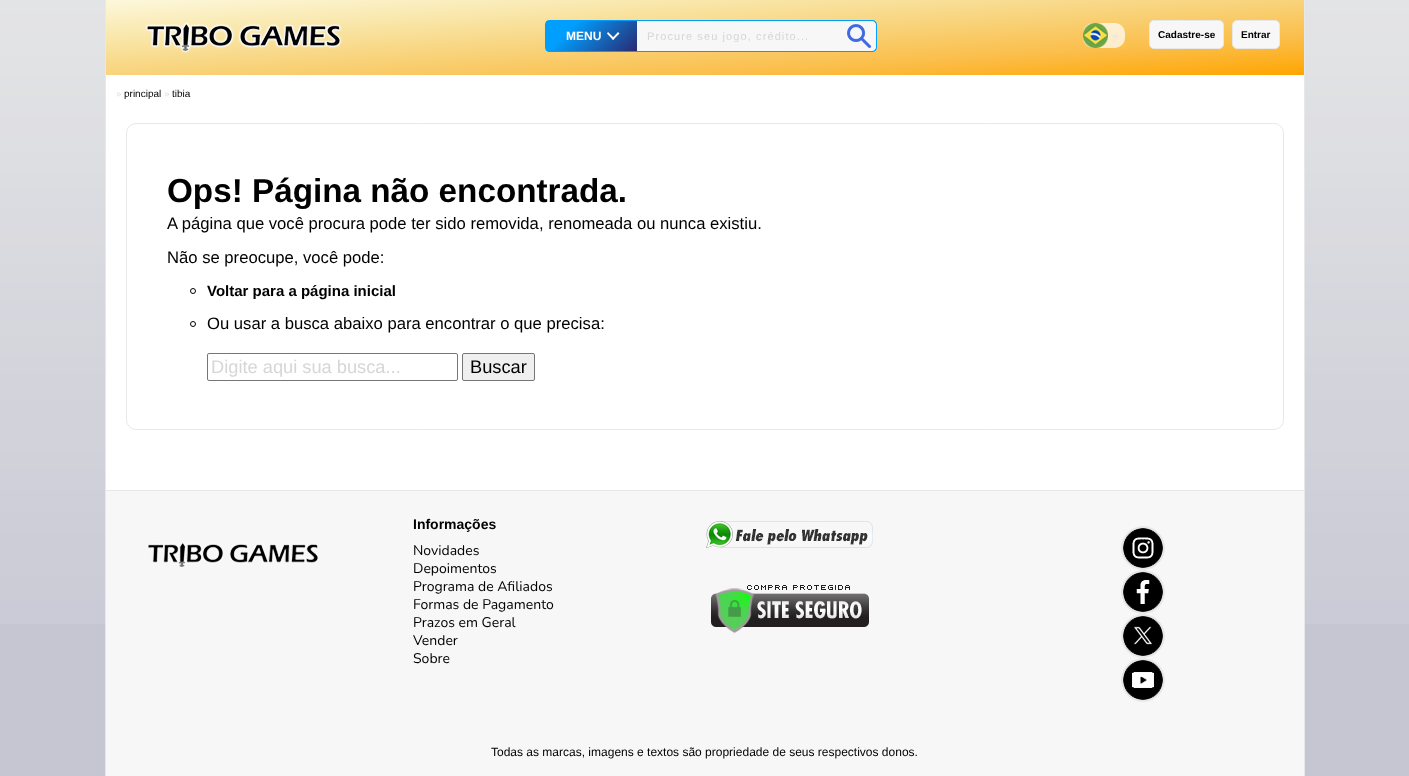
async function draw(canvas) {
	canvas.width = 1409;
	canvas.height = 776;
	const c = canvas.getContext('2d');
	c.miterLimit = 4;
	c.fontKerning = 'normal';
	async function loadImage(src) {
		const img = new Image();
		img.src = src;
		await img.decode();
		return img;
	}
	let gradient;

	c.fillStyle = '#c5c6d2';
	c.fillRect(0, 0, 1409, 776);
	c.drawImage(await loadImage('img1.png'), 0, 0, 1409, 624);
	c.fillStyle = '#e8e8e8';
	c.fillRect(1304, 0, 1, 776);
	c.fillRect(105, 0, 1, 776);
	c.drawImage(await loadImage('img2.png'), 106, 0, 1198, 75);
	gradient = c.createLinearGradient(622, 66, 561, 5.8);
	gradient.addColorStop(0, '#2a2a72');
	gradient.addColorStop(0.74, '#009ffd');
	c.fillStyle = gradient;
	c.fillRect(546, 21, 91, 30);
	c.fillStyle = '#009ffd';
	c.beginPath();
	c.moveTo(550, 20);
	c.lineTo(637, 20);
	c.lineTo(637, 52);
	c.lineTo(550, 52);
	c.bezierCurveTo(547, 52, 545, 50, 545, 47);
	c.lineTo(545, 25);
	c.bezierCurveTo(545, 22, 547, 20, 550, 20);
	c.closePath();
	c.moveTo(550, 21);
	c.lineTo(637, 21);
	c.lineTo(637, 51);
	c.lineTo(550, 51);
	c.bezierCurveTo(548, 51, 546, 49, 546, 47);
	c.lineTo(546, 25);
	c.bezierCurveTo(546, 23, 548, 21, 550, 21);
	c.closePath();
	c.fill('evenodd');
	c.font = 'bold 12px Liberation Sans';
	c.fillStyle = '#fff';
	c.fillText('MENU', 566, 40);
	c.beginPath();
	c.moveTo(608, 32);
	c.lineTo(614.5, 38.5);
	c.lineTo(613, 40);
	c.lineTo(607, 33.5);
	c.closePath();
	c.fill();
	c.beginPath();
	c.moveTo(612, 38.5);
	c.lineTo(618, 32);
	c.lineTo(619.5, 33.5);
	c.lineTo(613, 40);
	c.closePath();
	c.fill();
	c.fillStyle = '#f7f7f7';
	c.beginPath();
	c.roundRect(637, 20, 240, 32, [0, 5, 5, 0]);
	c.fill();
	c.drawImage(await loadImage('img3.png'), 847, 24, 24, 24);
	c.fillStyle = '#009ffd';
	c.beginPath();
	c.moveTo(637, 20);
	c.lineTo(872, 20);
	c.bezierCurveTo(875, 20, 877, 22, 877, 25);
	c.lineTo(877, 47);
	c.bezierCurveTo(877, 50, 875, 52, 872, 52);
	c.lineTo(637, 52);
	c.closePath();
	c.moveTo(637, 21);
	c.lineTo(872, 21);
	c.bezierCurveTo(874, 21, 876, 23, 876, 25);
	c.lineTo(876, 47);
	c.bezierCurveTo(876, 49, 874, 51, 872, 51);
	c.lineTo(637, 51);
	c.closePath();
	c.fill('evenodd');
	c.save();
	c.beginPath();
	c.rect(647, 30, 219, 12);
	c.clip();
	c.letterSpacing = '1.1px';
	c.font = '11px Liberation Sans';
	c.fillStyle = '#d6d6d6';
	c.fillText('Procure seu jogo, crédito...', 647, 40);
	c.restore();
	c.fillStyle = '#ffffffb3';
	c.beginPath();
	c.roundRect(1083, 23, 42, 25, 10);
	c.fill();
	c.drawImage(await loadImage('img4.png'), 1083, 23, 25, 25);
	c.fillStyle = '#e8e8e8';
	c.beginPath();
	c.moveTo(1111, 35);
	c.lineTo(1119, 35);
	c.lineTo(1115, 39);
	c.closePath();
	c.fill();
	c.fillStyle = '#f7f7f7';
	c.beginPath();
	c.roundRect(1149.5, 20.5, 74, 28, 4.5);
	c.fill();
	c.strokeStyle = '#e8e8e8';
	c.stroke();
	c.font = 'bold 10px Liberation Sans';
	c.fillStyle = '#000';
	c.fillText('Cadastre-se', 1158, 38);
	c.fillStyle = '#f7f7f7';
	c.beginPath();
	c.roundRect(1232.5, 20.5, 47, 28, 4.5);
	c.fill();
	c.stroke();
	c.fillStyle = '#000';
	c.fillText('Entrar', 1241, 38);
	c.fillStyle = '#fff';
	c.fillRect(106, 75, 1198, 415);
	c.font = '10px Liberation Sans';
	c.fillStyle = '#d3dce6';
	c.fillText('»', 116, 97);
	c.fillStyle = '#000';
	c.fillText('principal', 124, 97);
	c.fillStyle = '#d3dce6';
	c.fillText('»', 164, 97);
	c.fillStyle = '#000';
	c.fillText('tibia', 172, 97);
	c.beginPath();
	c.roundRect(126.5, 123.5, 1157, 306, 9.5);
	c.stroke();
	c.font = 'bold 33.25px Liberation Sans';
	c.fillText('Ops! Página não encontrada.', 167, 202);
	c.font = '16.65px Liberation Sans';
	c.fillText('A página que você procura pode ter sido removida, renomeada ou nunca existiu.', 167, 229);
	c.fillText('Não se preocupe, você pode:', 167, 263);
	c.beginPath();
	c.arc(193, 291, 2.5, 0, 2 * Math.PI);
	c.strokeStyle = '#000';
	c.stroke();
	c.font = 'bold 15px Liberation Sans';
	c.fillText('Voltar para a página inicial', 207, 296);
	c.beginPath();
	c.arc(193, 324, 2.5, 0, 2 * Math.PI);
	c.stroke();
	c.font = '16.65px Liberation Sans';
	c.fillText('Ou usar a busca abaixo para encontrar o que precisa:', 207, 329);
	c.beginPath();
	c.roundRect(207.5, 353.5, 250, 27, 1.5);
	c.strokeStyle = '#767676';
	c.stroke();
	c.font = '18.25px Liberation Sans';
	c.fillStyle = '#d6d6d6';
	c.fillText('Digite aqui sua busca...', 211, 373);
	c.fillStyle = '#efefef';
	c.beginPath();
	c.roundRect(462.5, 353.5, 72, 27, 1.5);
	c.fill();
	c.stroke();
	c.fillStyle = '#000';
	c.fillText('Buscar', 470, 373);
	c.fillStyle = '#f7f7f7';
	c.fillRect(106, 491, 1198, 285);
	c.fillStyle = '#e6e7e6';
	c.fillRect(106, 490, 1198, 1);
	c.drawImage(await loadImage('img5.png'), 148, 543, 170, 24);
	c.font = 'bold 14px Liberation Sans';
	c.fillStyle = '#000';
	c.fillText('Informações', 413, 529);
	c.font = '14px Nunito';
	for (const [text, x, y] of [
		['Novidades', 413, 555],
		['Depoimentos', 413, 573],
		['Programa de Afiliados', 413, 591],
		['Formas de Pagamento', 413, 609],
		['Prazos em Geral', 413, 627],
		['Vender', 413, 645],
		['Sobre', 413, 663],
	]) {
		c.fillText(text, x, y);
	}
	c.drawImage(await loadImage('img6.png'), 706, 521, 167, 27);
	c.drawImage(await loadImage('img7.png'), 711, 585, 158, 48);
	c.drawImage(await loadImage('img8.png'), 1121, 526, 44, 44);
	c.drawImage(await loadImage('img9.png'), 1121, 570, 44, 44);
	c.drawImage(await loadImage('img10.png'), 1121, 614, 44, 44);
	c.drawImage(await loadImage('img11.png'), 1121, 658, 44, 44);
	c.font = '12px Liberation Sans';
	c.fillText('Todas as marcas, imagens e textos são propriedade de seus respectivos donos.', 491, 756);
}

draw(document.querySelector('canvas'));
